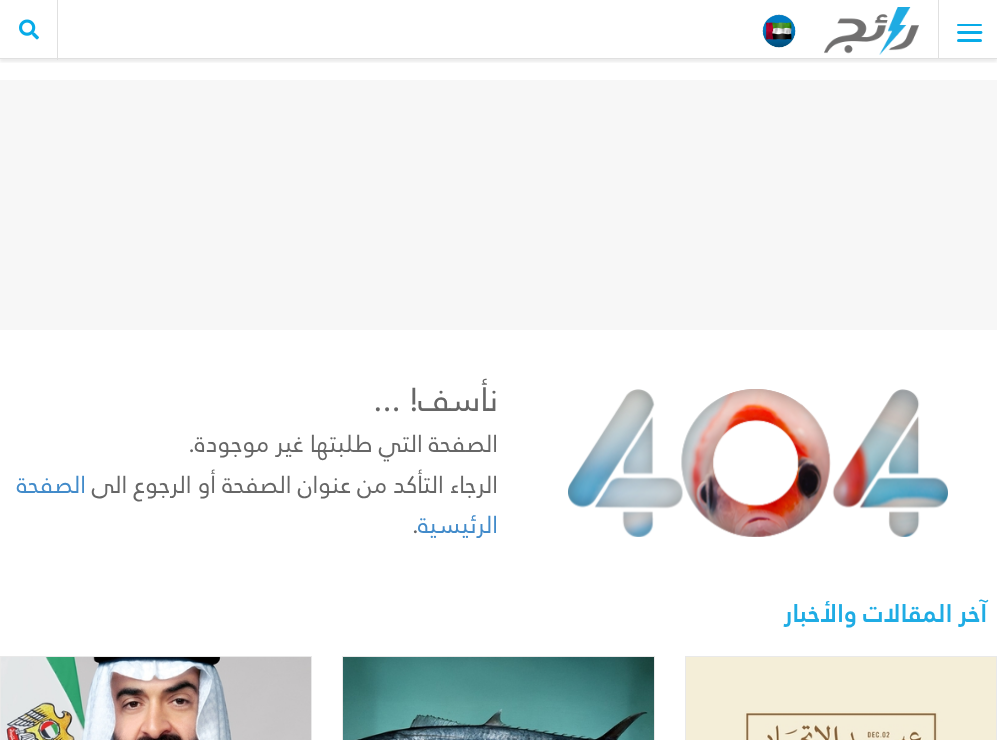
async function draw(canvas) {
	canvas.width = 997;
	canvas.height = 740;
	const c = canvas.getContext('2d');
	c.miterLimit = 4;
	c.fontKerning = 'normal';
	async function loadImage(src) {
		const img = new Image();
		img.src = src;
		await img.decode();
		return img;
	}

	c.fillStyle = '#fff';
	c.fillRect(0, 0, 997, 740);
	c.save();
	c.beginPath();
	c.rect(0, 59, 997, 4);
	c.clip();
	c.fillStyle = '#00000014';
	c.filter = 'blur(1.5px)';
	c.beginPath();
	c.rect(0, 3, 997, 59);
	c.fill();
	c.filter = 'none';
	c.restore();
	c.fillStyle = '#e0e0e0';
	c.fillRect(0, 58, 997, 1);
	c.fillStyle = '#07abe8';
	c.beginPath();
	c.roundRect(957, 24, 25, 2, 1);
	c.fill();
	c.beginPath();
	c.moveTo(958.5, 32.5);
	c.lineTo(981, 32.5);
	c.strokeStyle = '#07abe8';
	c.lineWidth = 2.8;
	c.lineCap = 'round';
	c.stroke();
	c.beginPath();
	c.roundRect(957, 39, 25, 3, 1.5);
	c.fill();
	c.fillStyle = '#e0e0e0';
	c.fillRect(938, 0, 1, 59);
	c.drawImage(await loadImage('img1.png'), 824, 7, 95, 48);
	c.drawImage(await loadImage('img2.png'), 762, 14, 34, 34);
	c.fillRect(57, 0, 1, 60);
	c.drawImage(await loadImage('img3.png'), 19, 19, 20, 21);
	c.fillStyle = '#f7f7f7';
	c.fillRect(0, 80, 997, 250);
	c.drawImage(await loadImage('img4.png'), 568, 389, 380, 148);
	c.direction = 'rtl';
	c.font = '33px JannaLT';
	c.fillStyle = '#666';
	c.fillText('نأسف! ...', 498, 411);
	c.font = '24px JannaLT';
	c.fillText('الصفحة التي طلبتها غير موجودة.', 498, 452);
	c.fillText('الرجاء التأكد من عنوان الصفحة أو الرجوع الى', 498, 493);
	c.fillStyle = '#428bca';
	c.fillText('الصفحة', 86, 493);
	c.fillText('الرئيسية', 498, 533);
	c.direction = 'ltr';
	c.fillStyle = '#666';
	c.fillText('.', 412, 533);
	c.direction = 'rtl';
	c.font = 'bold 25px JannaLT';
	c.fillStyle = '#1face4';
	c.fillText('آخر المقالات والأخبار', 987, 622);
	c.strokeStyle = '#e9e9e9';
	c.lineWidth = 1;
	c.strokeRect(685.5, 656.5, 311, 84);
	c.drawImage(await loadImage('img5.png'), 686, 657, 310, 83);
	c.strokeRect(342.5, 656.5, 312, 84);
	c.drawImage(await loadImage('img6.png'), 343, 657, 311, 83);
	c.strokeRect(0.5, 656.5, 311, 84);
	c.drawImage(await loadImage('img7.png'), 1, 657, 310, 83);
}

draw(document.querySelector('canvas'));
